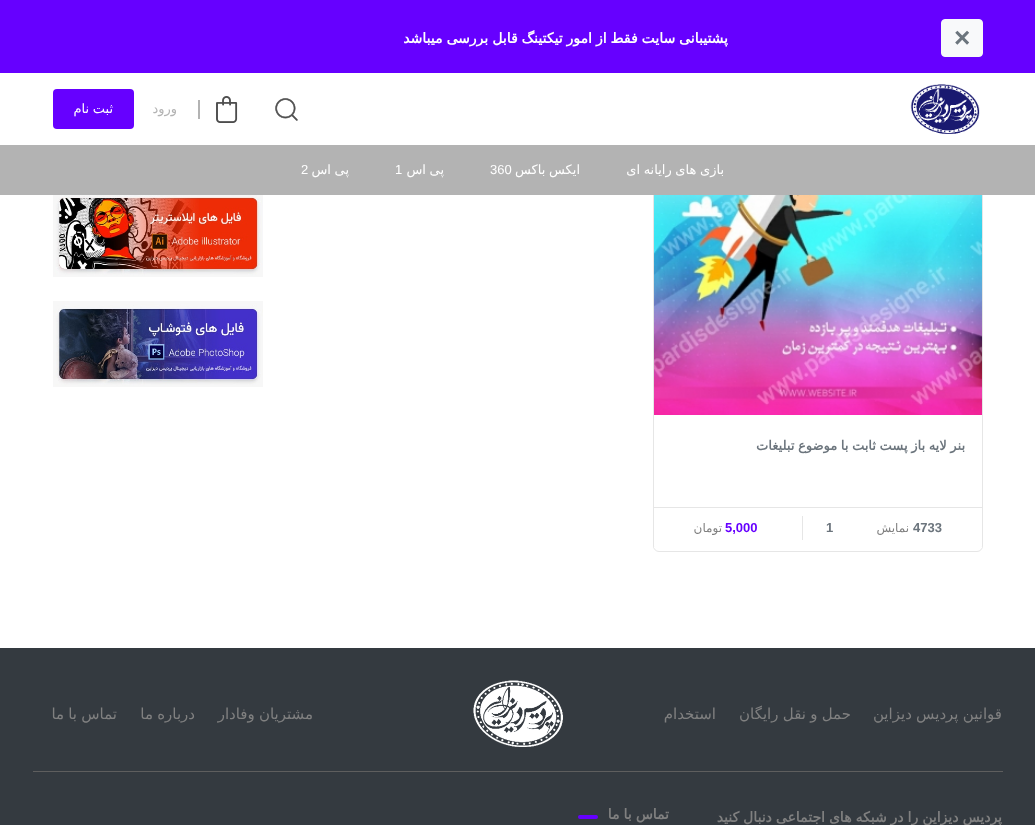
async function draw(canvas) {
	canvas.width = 1035;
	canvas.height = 825;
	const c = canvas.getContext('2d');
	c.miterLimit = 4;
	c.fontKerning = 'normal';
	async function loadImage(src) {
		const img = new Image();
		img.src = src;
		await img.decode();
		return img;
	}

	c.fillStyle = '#fff';
	c.fillRect(0, 0, 1035, 825);
	c.beginPath();
	c.roundRect(653.5, 76.5, 329, 475, 5.5);
	c.strokeStyle = '#e6e6e6';
	c.stroke();
	c.fillRect(653, 76, 330, 69);
	c.fillStyle = '#60f';
	c.fillRect(0, 0, 1035, 73);
	c.fillStyle = '#f8f9fa';
	c.beginPath();
	c.roundRect(941.5, 19.5, 41, 37, 3.5);
	c.fill();
	c.strokeStyle = '#f8f9fa';
	c.stroke();
	c.font = 'bold 28px Liberation Sans';
	c.fillStyle = '#6c757d';
	c.fillText('×', 954, 47);
	c.wordSpacing = '-0.5px';
	c.direction = 'rtl';
	c.font = 'bold 14px DejaVu Sans';
	c.fillStyle = '#fff';
	c.fillText('پشتیبانی سایت فقط از امور تیکتینگ قابل بررسی میباشد', 728, 43);
	c.drawImage(await loadImage('img1.png'), 910, 84, 70, 50);
	c.drawImage(await loadImage('img2.png'), 275, 98, 23, 23);
	c.drawImage(await loadImage('img3.png'), 216, 96, 22, 27);
	c.fillStyle = '#b3b3b3';
	c.fillRect(198, 100, 2, 19);
	c.wordSpacing = '0px';
	c.font = '13px DejaVu Sans';
	c.fillText('ورود', 177, 113);
	c.fillStyle = '#60f';
	c.beginPath();
	c.roundRect(53, 89, 81, 40, 4);
	c.fill();
	c.wordSpacing = '-0.5px';
	c.fillStyle = '#fff';
	c.fillText('ثبت نام', 113, 113);
	c.fillStyle = '#b3b3b3';
	c.fillRect(0, 145, 1035, 50);
	c.fillStyle = '#fff';
	c.fillText('بازی های رایانه ای', 724, 174);
	c.fillText('ایکس باکس', 580, 174);
	c.wordSpacing = '0px';
	c.direction = 'ltr';
	c.font = '13px Liberation Sans';
	c.fillText('360', 490, 174);
	c.wordSpacing = '-0.5px';
	c.direction = 'rtl';
	c.font = '13px DejaVu Sans';
	c.fillText('پی اس', 444, 174);
	c.wordSpacing = '0px';
	c.direction = 'ltr';
	c.font = '13px Liberation Sans';
	c.fillText('1', 395, 174);
	c.wordSpacing = '-0.5px';
	c.direction = 'rtl';
	c.font = '13px DejaVu Sans';
	c.fillText('پی اس', 349, 174);
	c.wordSpacing = '0px';
	c.direction = 'ltr';
	c.font = '13px Liberation Sans';
	c.fillText('2', 301, 174);
	c.drawImage(await loadImage('img4.png'), 53, 195, 210, 82);
	c.drawImage(await loadImage('img5.png'), 53, 301, 210, 86);
	c.drawImage(await loadImage('img6.png'), 654, 195, 328, 220);
	c.fillRect(654, 547, 328, 1);
	c.wordSpacing = '-0.5px';
	c.direction = 'rtl';
	c.font = 'bold 13px DejaVu Sans';
	c.fillStyle = '#6c757d';
	c.fillText('بنر لایه باز پست ثابت با موضوع تبلیغات', 965, 450);
	c.fillStyle = '#e6e6e6';
	c.fillRect(654, 507, 328, 1);
	c.wordSpacing = '0px';
	c.direction = 'ltr';
	c.font = 'bold 13px Liberation Sans';
	c.fillStyle = '#6c757d';
	c.fillText('4733', 913, 532);
	c.direction = 'rtl';
	c.font = '12px DejaVu Sans';
	c.fillStyle = '#808080';
	c.fillText('نمایش', 909, 532);
	c.fillStyle = '#e6e6e6';
	c.fillRect(802, 516, 1, 24);
	c.direction = 'ltr';
	c.font = 'bold 13px Liberation Sans';
	c.fillStyle = '#6c757d';
	c.fillText('1', 826, 532);
	c.fillStyle = '#60f';
	c.fillText('5,000', 725, 532);
	c.direction = 'rtl';
	c.font = '12px DejaVu Sans';
	c.fillStyle = '#808080';
	c.fillText('تومان', 722, 532);
	c.fillStyle = '#343a40';
	c.fillRect(0, 648, 1035, 177);
	c.wordSpacing = '-0.5px';
	c.font = '15px DejaVu Sans';
	c.fillStyle = '#808080';
	c.fillText('قوانین پردیس دیزاین', 1002, 719);
	c.fillText('حمل و نقل رایگان', 851, 719);
	c.wordSpacing = '0px';
	c.fillText('استخدام', 716, 719);
	c.drawImage(await loadImage('img7.png'), 473, 680, 90, 67);
	c.wordSpacing = '-0.5px';
	for (const [text, x, y] of [
		['مشتریان وفادار', 313, 719],
		['درباره ما', 195, 719],
		['تماس با ما', 117, 719],
	]) {
		c.fillText(text, x, y);
	}
	c.fillStyle = '#5e5e5e';
	c.fillRect(33, 771, 970, 1);
	c.font = 'bold 14px DejaVu Sans';
	c.fillStyle = '#808080';
	c.fillText('پردیس دیزاین را در شبکه های اجتماعی دنبال کنید', 1002, 822);
	c.fillText('تماس با ما', 669, 819);
	c.fillStyle = '#60f';
	c.beginPath();
	c.roundRect(578, 815, 20, 4, 2);
	c.fill();
}

draw(document.querySelector('canvas'));
